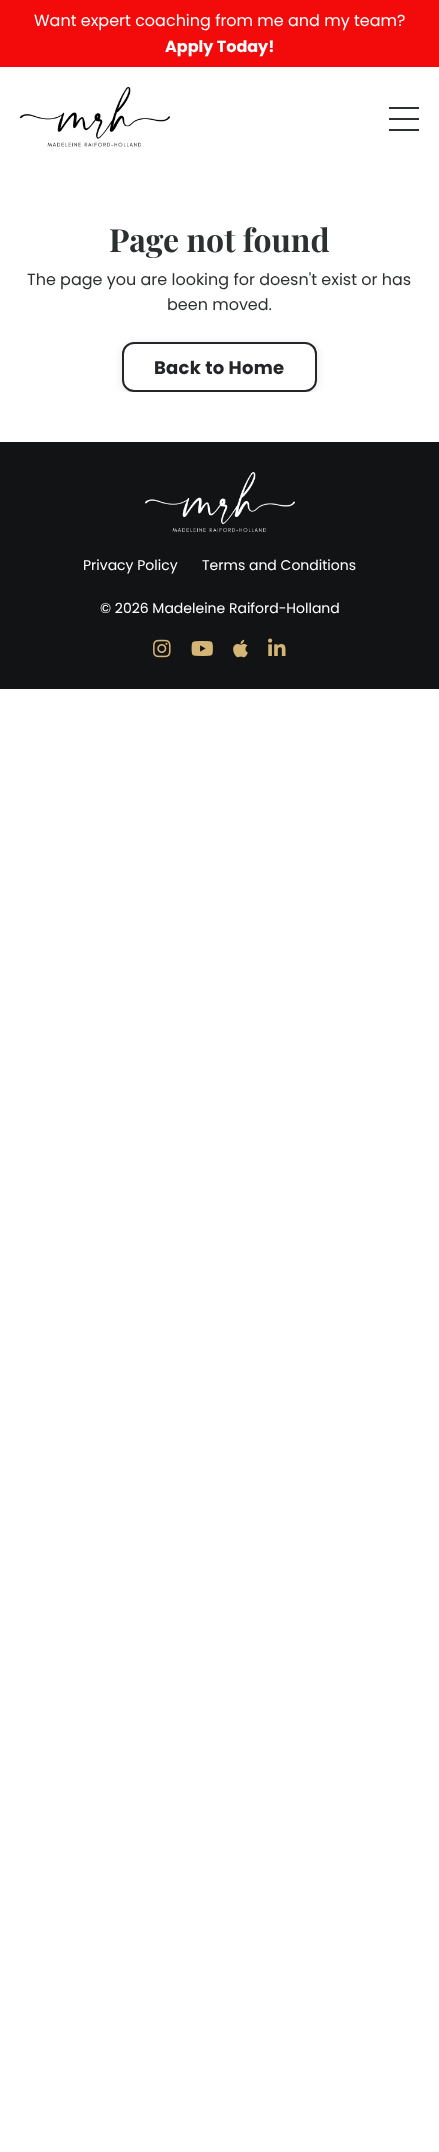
async function draw(canvas) {
	canvas.width = 439;
	canvas.height = 2152;
	const c = canvas.getContext('2d');
	c.miterLimit = 4;
	c.fontKerning = 'normal';
	async function loadImage(src) {
		const img = new Image();
		img.src = src;
		await img.decode();
		return img;
	}

	c.fillStyle = '#fff';
	c.fillRect(0, 0, 439, 2152);
	c.fillStyle = '#f30a0a';
	c.fillRect(0, 0, 439, 67);
	c.font = '16px Poppins';
	c.fillStyle = '#fff';
	c.fillText('Want expert coaching from me and my team?', 34, 26);
	c.font = 'bold 16px Poppins';
	c.fillText('Apply Today!', 165, 52);
	c.drawImage(await loadImage('img1.png'), 20, 87, 150, 60);
	for (const [x, y, w, h, color] of [
		[389, 107, 30, 2, '#2d3031'],
		[389, 118, 30, 2, '#2d3031'],
		[389, 129, 30, 2, '#2d3031'],
	]) {
		c.fillStyle = color;
		c.fillRect(x, y, w, h);
	}
	c.font = 'bold 32px Playfair Display';
	c.fillText('Page not found', 109, 252);
	c.font = '16px Poppins';
	c.fillText('The page you are looking for doesn\'t exist or has', 27, 285);
	c.fillText('been moved.', 167, 310);
	c.save();
	c.beginPath();
	c.roundRect(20, 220, 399, 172, 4);
	c.clip();
	c.beginPath();
	c.moveTo(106, 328);
	c.lineTo(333, 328);
	c.lineTo(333, 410);
	c.lineTo(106, 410);
	c.closePath();
	c.moveTo(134, 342);
	c.lineTo(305, 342);
	c.bezierCurveTo(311.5, 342, 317, 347.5, 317, 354);
	c.lineTo(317, 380);
	c.bezierCurveTo(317, 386.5, 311.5, 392, 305, 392);
	c.lineTo(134, 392);
	c.bezierCurveTo(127.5, 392, 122, 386.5, 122, 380);
	c.lineTo(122, 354);
	c.bezierCurveTo(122, 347.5, 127.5, 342, 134, 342);
	c.closePath();
	c.clip('evenodd');
	c.fillStyle = '#0000001a';
	c.filter = 'blur(5px)';
	c.beginPath();
	c.roundRect(122, 344, 195, 50, 12);
	c.fill();
	c.filter = 'none';
	c.restore();
	c.beginPath();
	c.roundRect(123, 343, 193, 48, 11);
	c.strokeStyle = '#242529';
	c.lineWidth = 2;
	c.stroke();
	c.letterSpacing = '0.25px';
	c.font = 'bold 18px Poppins';
	c.fillStyle = '#242529';
	c.fillText('Back to Home', 154, 374);
	c.fillStyle = '#121315';
	c.fillRect(0, 442, 439, 247);
	c.drawImage(await loadImage('img2.png'), 145, 472, 150, 60);
	c.letterSpacing = '0px';
	c.font = '14px Poppins';
	c.fillStyle = '#fff';
	for (const [text, x, y] of [
		['Privacy Policy', 83, 570],
		['Terms and Conditions', 202, 570],
		['© 2026 Madeleine Raiford-Holland', 100, 613],
	]) {
		c.fillText(text, x, y);
	}
	c.drawImage(await loadImage('img3.png'), 153, 639, 18, 19);
	c.drawImage(await loadImage('img4.png'), 191, 641, 22, 15);
	c.drawImage(await loadImage('img5.png'), 233, 639, 15, 19);
	c.drawImage(await loadImage('img6.png'), 268, 638, 18, 18);
}

draw(document.querySelector('canvas'));
